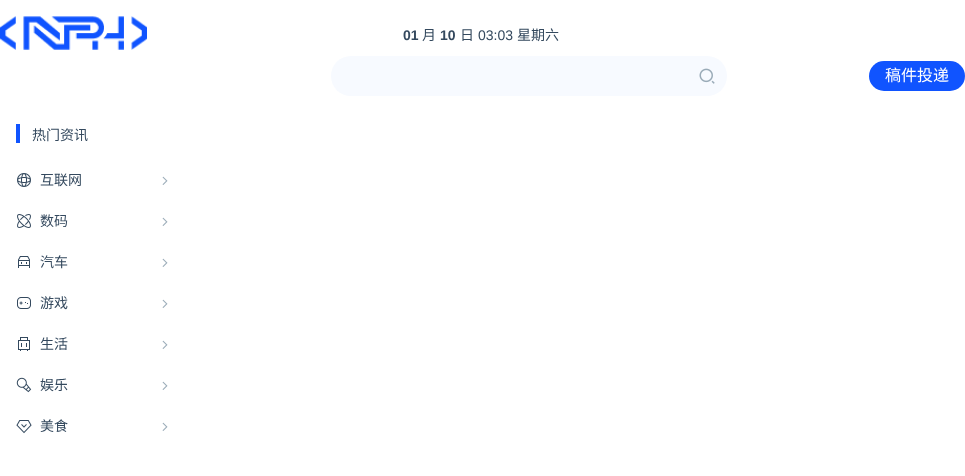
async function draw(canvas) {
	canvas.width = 965;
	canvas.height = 476;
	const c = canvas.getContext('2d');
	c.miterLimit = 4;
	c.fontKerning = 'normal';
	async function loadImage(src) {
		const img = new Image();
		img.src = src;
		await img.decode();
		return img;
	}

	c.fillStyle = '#fff';
	c.fillRect(0, 0, 965, 476);
	c.drawImage(await loadImage('img1.png'), 0, 16, 147, 34);
	c.font = 'bold 14px Liberation Sans';
	c.fillStyle = '#34495e';
	c.fillText('01', 403, 40);
	c.font = '14px Noto Sans CJK SC';
	c.fillText('月', 422, 40);
	c.font = 'bold 14px Liberation Sans';
	c.fillText('10', 440, 40);
	c.font = '14px Noto Sans CJK SC';
	c.fillText('日', 460, 40);
	c.font = '14px Liberation Sans';
	c.fillText('03:03', 478, 40);
	c.font = '14px Noto Sans CJK SC';
	c.fillText('星期六', 517, 40);
	c.fillStyle = '#f7faff';
	c.beginPath();
	c.roundRect(331, 56, 396, 40, 20);
	c.fill();
	c.drawImage(await loadImage('img2.png'), 699, 68, 16, 16);
	c.fillStyle = '#1054ff';
	c.beginPath();
	c.roundRect(869, 61, 96, 30, 15);
	c.fill();
	c.font = '16px Noto Sans CJK SC';
	c.fillStyle = '#fff';
	c.fillText('稿件投递', 885, 81);
	c.fillStyle = '#1054ff';
	c.fillRect(16, 124, 4, 19);
	c.font = '14px Noto Sans CJK SC';
	c.fillStyle = '#34495e';
	c.fillText('热门资讯', 32, 140);
	c.drawImage(await loadImage('img3.png'), 17, 173, 14, 14);
	c.fillText('互联网', 40, 185);
	c.drawImage(await loadImage('img4.png'), 162, 176, 6, 9);
	c.drawImage(await loadImage('img5.png'), 17, 214, 14, 14);
	c.fillText('数码', 40, 226);
	c.drawImage(await loadImage('img4.png'), 162, 217, 6, 9);
	c.drawImage(await loadImage('img6.png'), 18, 256, 12, 12);
	c.fillText('汽车', 40, 267);
	c.drawImage(await loadImage('img4.png'), 162, 258, 6, 9);
	c.drawImage(await loadImage('img7.png'), 17, 297, 14, 12);
	c.fillText('游戏', 40, 308);
	c.drawImage(await loadImage('img4.png'), 162, 299, 6, 9);
	c.drawImage(await loadImage('img8.png'), 18, 337, 12, 14);
	c.fillText('生活', 40, 349);
	c.drawImage(await loadImage('img4.png'), 162, 340, 6, 9);
	c.drawImage(await loadImage('img9.png'), 16, 377, 16, 16);
	c.fillText('娱乐', 40, 390);
	c.drawImage(await loadImage('img4.png'), 162, 381, 6, 9);
	c.drawImage(await loadImage('img10.png'), 16, 420, 16, 14);
	c.fillText('美食', 40, 431);
	c.drawImage(await loadImage('img4.png'), 162, 422, 6, 9);
}

draw(document.querySelector('canvas'));
